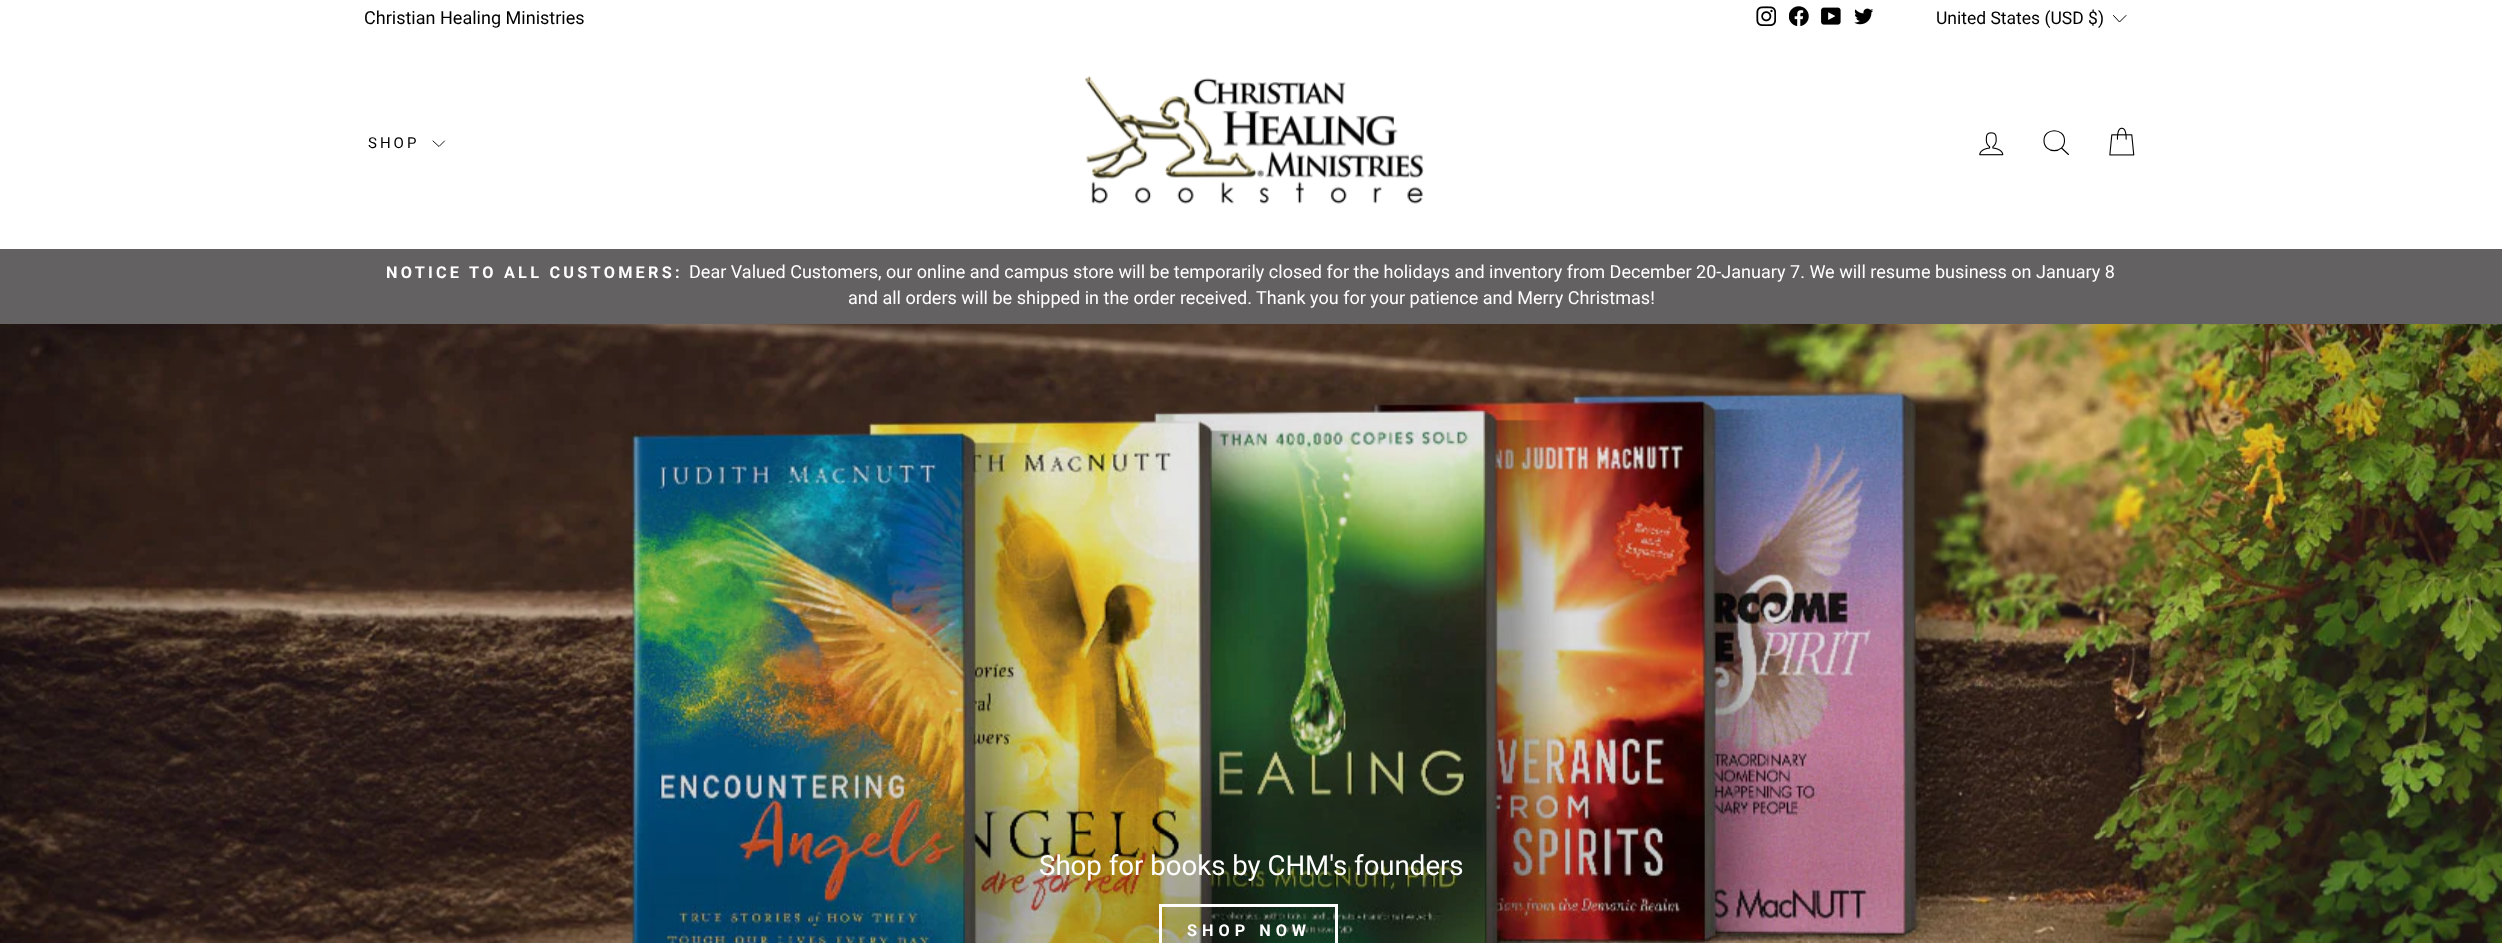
async function draw(canvas) {
	canvas.width = 2502;
	canvas.height = 943;
	const c = canvas.getContext('2d');
	c.miterLimit = 4;
	c.fontKerning = 'normal';
	async function loadImage(src) {
		const img = new Image();
		img.src = src;
		await img.decode();
		return img;
	}

	c.fillStyle = '#fff';
	c.fillRect(0, 0, 2502, 943);
	c.font = '18.05px Roboto';
	c.fillStyle = '#000';
	c.fillText('Christian Healing Ministries', 364, 24);
	c.drawImage(await loadImage('img1.png'), 1756, 6, 20, 20);
	c.drawImage(await loadImage('img2.png'), 1789, 6, 20, 20);
	c.drawImage(await loadImage('img3.png'), 1821, 7, 20, 18);
	c.drawImage(await loadImage('img4.png'), 1854, 8, 20, 17);
	c.font = '17.5px Roboto';
	c.fillText('United States (USD $)', 1936, 24);
	c.beginPath();
	c.moveTo(2113.5, 15.5);
	c.lineTo(2119.5, 22);
	c.lineTo(2126, 15.5);
	c.strokeStyle = '#000';
	c.lineCap = 'round';
	c.lineJoin = 'round';
	c.stroke();
	c.fillStyle = '#636161';
	c.fillRect(0, 249, 2502, 75);
	c.fillStyle = '#00000033';
	c.filter = 'blur(0.5px)';
	c.beginPath();
	c.rect(0, 38, 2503, 211);
	c.fill();
	c.filter = 'none';
	c.fillStyle = '#fff';
	c.fillRect(0, 38, 2502, 211);
	c.letterSpacing = '3px';
	c.font = '15px Roboto';
	c.fillStyle = '#000';
	c.fillText('SHOP', 368, 148);
	c.beginPath();
	c.moveTo(433, 141);
	c.lineTo(439, 146.5);
	c.lineTo(444.5, 141);
	c.lineWidth = 0.9;
	c.stroke();
	c.drawImage(await loadImage('img5.png'), 1085, 76, 339, 128);
	c.drawImage(await loadImage('img6.png'), 1979, 132, 25, 24);
	c.beginPath();
	c.moveTo(2064.5, 140.5);
	c.bezierCurveTo(2064.5, 154, 2044, 154, 2044, 140.5);
	c.bezierCurveTo(2044, 127.5, 2064.5, 127.5, 2064.5, 140.5);
	c.closePath();
	c.moveTo(2068.5, 154.5);
	c.lineTo(2061.5, 148);
	c.lineWidth = 1.1;
	c.stroke();
	c.drawImage(await loadImage('img7.png'), 2109, 127, 26, 29);
	c.letterSpacing = '3.25px';
	c.font = 'bold 16.25px Roboto';
	c.fillStyle = '#fff';
	c.fillText('NOTICE TO ALL CUSTOMERS:', 386, 278);
	c.letterSpacing = '0px';
	c.font = '18.05px Roboto';
	c.fillText('Dear Valued Customers, our online and campus store will be temporarily closed for the holidays and inventory from December 20-January 7. We will resume business on January 8', 689, 278);
	c.fillText('and all orders will be shipped in the order received. Thank you for your patience and Merry Christmas!', 848, 304);
	c.drawImage(await loadImage('img8.png'), 0, 324, 2502, 619);
	c.font = '27.6px Roboto';
	c.fillText('Shop for books by CHM\'s founders', 1039, 875);
	c.strokeStyle = '#fff';
	c.lineWidth = 3;
	c.lineJoin = 'miter';
	c.strokeRect(1160.5, 905.5, 176, 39);
	c.letterSpacing = '5px';
	c.font = 'bold 16.25px Roboto';
	c.fillText('SHOP NOW', 1187, 936);
}

draw(document.querySelector('canvas'));
